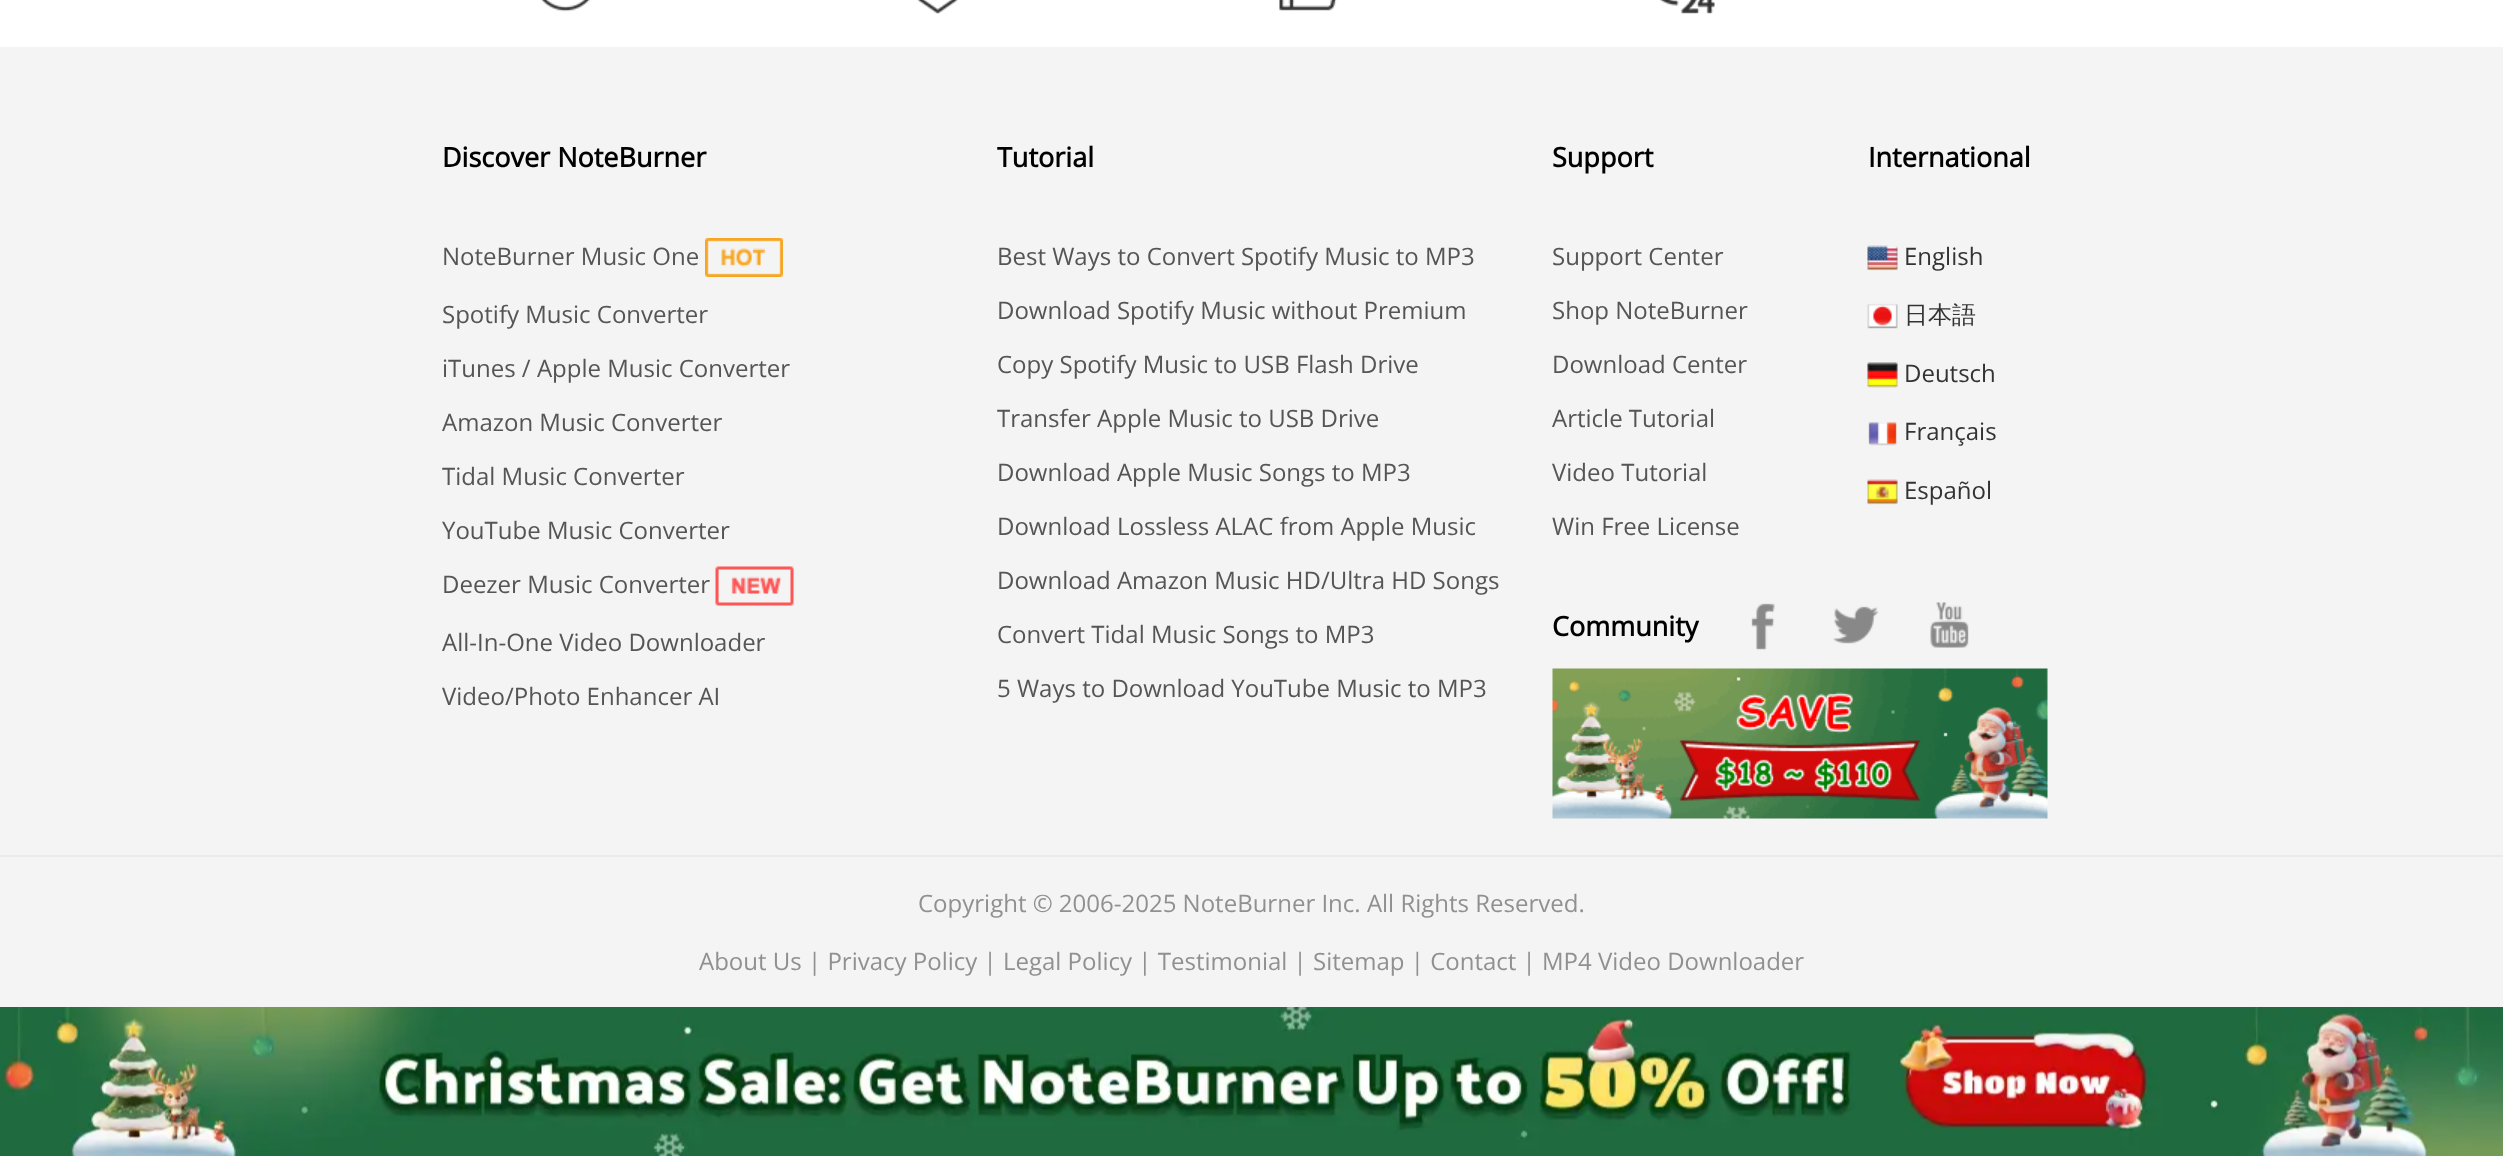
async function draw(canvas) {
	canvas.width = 2503;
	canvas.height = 1156;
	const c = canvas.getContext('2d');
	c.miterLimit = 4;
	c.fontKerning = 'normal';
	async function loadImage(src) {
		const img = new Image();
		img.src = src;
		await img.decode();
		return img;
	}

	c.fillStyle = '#fff';
	c.fillRect(0, 0, 2503, 1156);
	c.drawImage(await loadImage('img1.png'), 541, 0, 49, 12);
	c.drawImage(await loadImage('img2.png'), 917, 0, 41, 14);
	c.drawImage(await loadImage('img3.png'), 1279, 0, 58, 11);
	c.drawImage(await loadImage('img4.png'), 1660, 0, 55, 14);
	c.fillStyle = '#f4f4f4';
	c.fillRect(0, 47, 2503, 808);
	c.fillStyle = '#ebebeb';
	c.fillRect(0, 855, 2503, 2);
	c.font = 'bold 27px Open Sans';
	c.fillStyle = '#000';
	c.fillText('Discover NoteBurner', 442, 167);
	c.font = '24px Open Sans';
	c.fillStyle = '#555';
	c.fillText('NoteBurner Music One', 442, 265);
	c.drawImage(await loadImage('img5.png'), 705, 238, 78, 39);
	for (const [text, x, y] of [
		['Spotify Music Converter', 442, 323],
		['iTunes / Apple Music Converter', 442, 377],
		['Amazon Music Converter', 442, 431],
		['Tidal Music Converter', 442, 485],
		['YouTube Music Converter', 442, 539],
		['Deezer Music Converter', 442, 593],
	]) {
		c.fillText(text, x, y);
	}
	c.drawImage(await loadImage('img6.png'), 715, 566, 79, 40);
	c.fillText('All-In-One Video Downloader', 442, 651);
	c.fillText('Video/Photo Enhancer AI', 442, 705);
	c.font = 'bold 27px Open Sans';
	c.fillStyle = '#000';
	c.fillText('Tutorial', 997, 167);
	c.font = '24px Open Sans';
	c.fillStyle = '#555';
	for (const [text, x, y] of [
		['Best Ways to Convert Spotify Music to MP3', 997, 265],
		['Download Spotify Music without Premium', 997, 319],
		['Copy Spotify Music to USB Flash Drive', 997, 373],
		['Transfer Apple Music to USB Drive', 997, 427],
		['Download Apple Music Songs to MP3', 997, 481],
		['Download Lossless ALAC from Apple Music', 997, 535],
		['Download Amazon Music HD/Ultra HD Songs', 997, 589],
		['Convert Tidal Music Songs to MP3', 997, 643],
		['5 Ways to Download YouTube Music to MP3', 997, 697],
	]) {
		c.fillText(text, x, y);
	}
	c.font = 'bold 27px Open Sans';
	c.fillStyle = '#000';
	c.fillText('Support', 1552, 167);
	c.font = '24px Open Sans';
	c.fillStyle = '#555';
	for (const [text, x, y] of [
		['Support Center', 1552, 265],
		['Shop NoteBurner', 1552, 319],
		['Download Center', 1552, 373],
		['Article Tutorial', 1552, 427],
		['Video Tutorial', 1552, 481],
		['Win Free License', 1552, 535],
	]) {
		c.fillText(text, x, y);
	}
	c.font = 'bold 27px Open Sans';
	c.fillStyle = '#000';
	c.fillText('International', 1868, 167);
	c.drawImage(await loadImage('img7.png'), 1867, 245, 31, 26);
	c.font = '24px Open Sans';
	c.fillStyle = '#333';
	c.fillText('English', 1904, 265);
	c.drawImage(await loadImage('img8.png'), 1867, 303, 31, 26);
	c.font = '500 24px WenQuanYi Zen Hei';
	c.fillText('日本語', 1904, 323);
	c.drawImage(await loadImage('img9.png'), 1867, 362, 31, 26);
	c.font = '24px Open Sans';
	c.fillText('Deutsch', 1904, 382);
	c.drawImage(await loadImage('img10.png'), 1868, 422, 29, 24);
	c.fillText('Français', 1904, 440);
	c.drawImage(await loadImage('img11.png'), 1867, 479, 31, 26);
	c.fillText('Español', 1904, 499);
	c.font = 'bold 27px Open Sans';
	c.fillStyle = '#000';
	c.fillText('Community', 1552, 636);
	c.drawImage(await loadImage('img12.png'), 1751, 603, 24, 47);
	c.drawImage(await loadImage('img13.png'), 1833, 606, 46, 38);
	c.drawImage(await loadImage('img14.png'), 1930, 602, 39, 46);
	c.drawImage(await loadImage('img15.png'), 1552, 668, 496, 151);
	c.fillStyle = '#f4f4f4';
	c.fillRect(0, 857, 2503, 150);
	c.font = '24px Open Sans';
	c.fillStyle = '#909090';
	c.fillText('Copyright © 2006-2025 NoteBurner Inc. All Rights Reserved.', 918, 912);
	c.fillText('About Us | Privacy Policy | Legal Policy | Testimonial | Sitemap | Contact | MP4 Video Downloader', 699, 970);
	c.drawImage(await loadImage('img16.png'), 0, 1007, 2503, 149);
}

draw(document.querySelector('canvas'));
